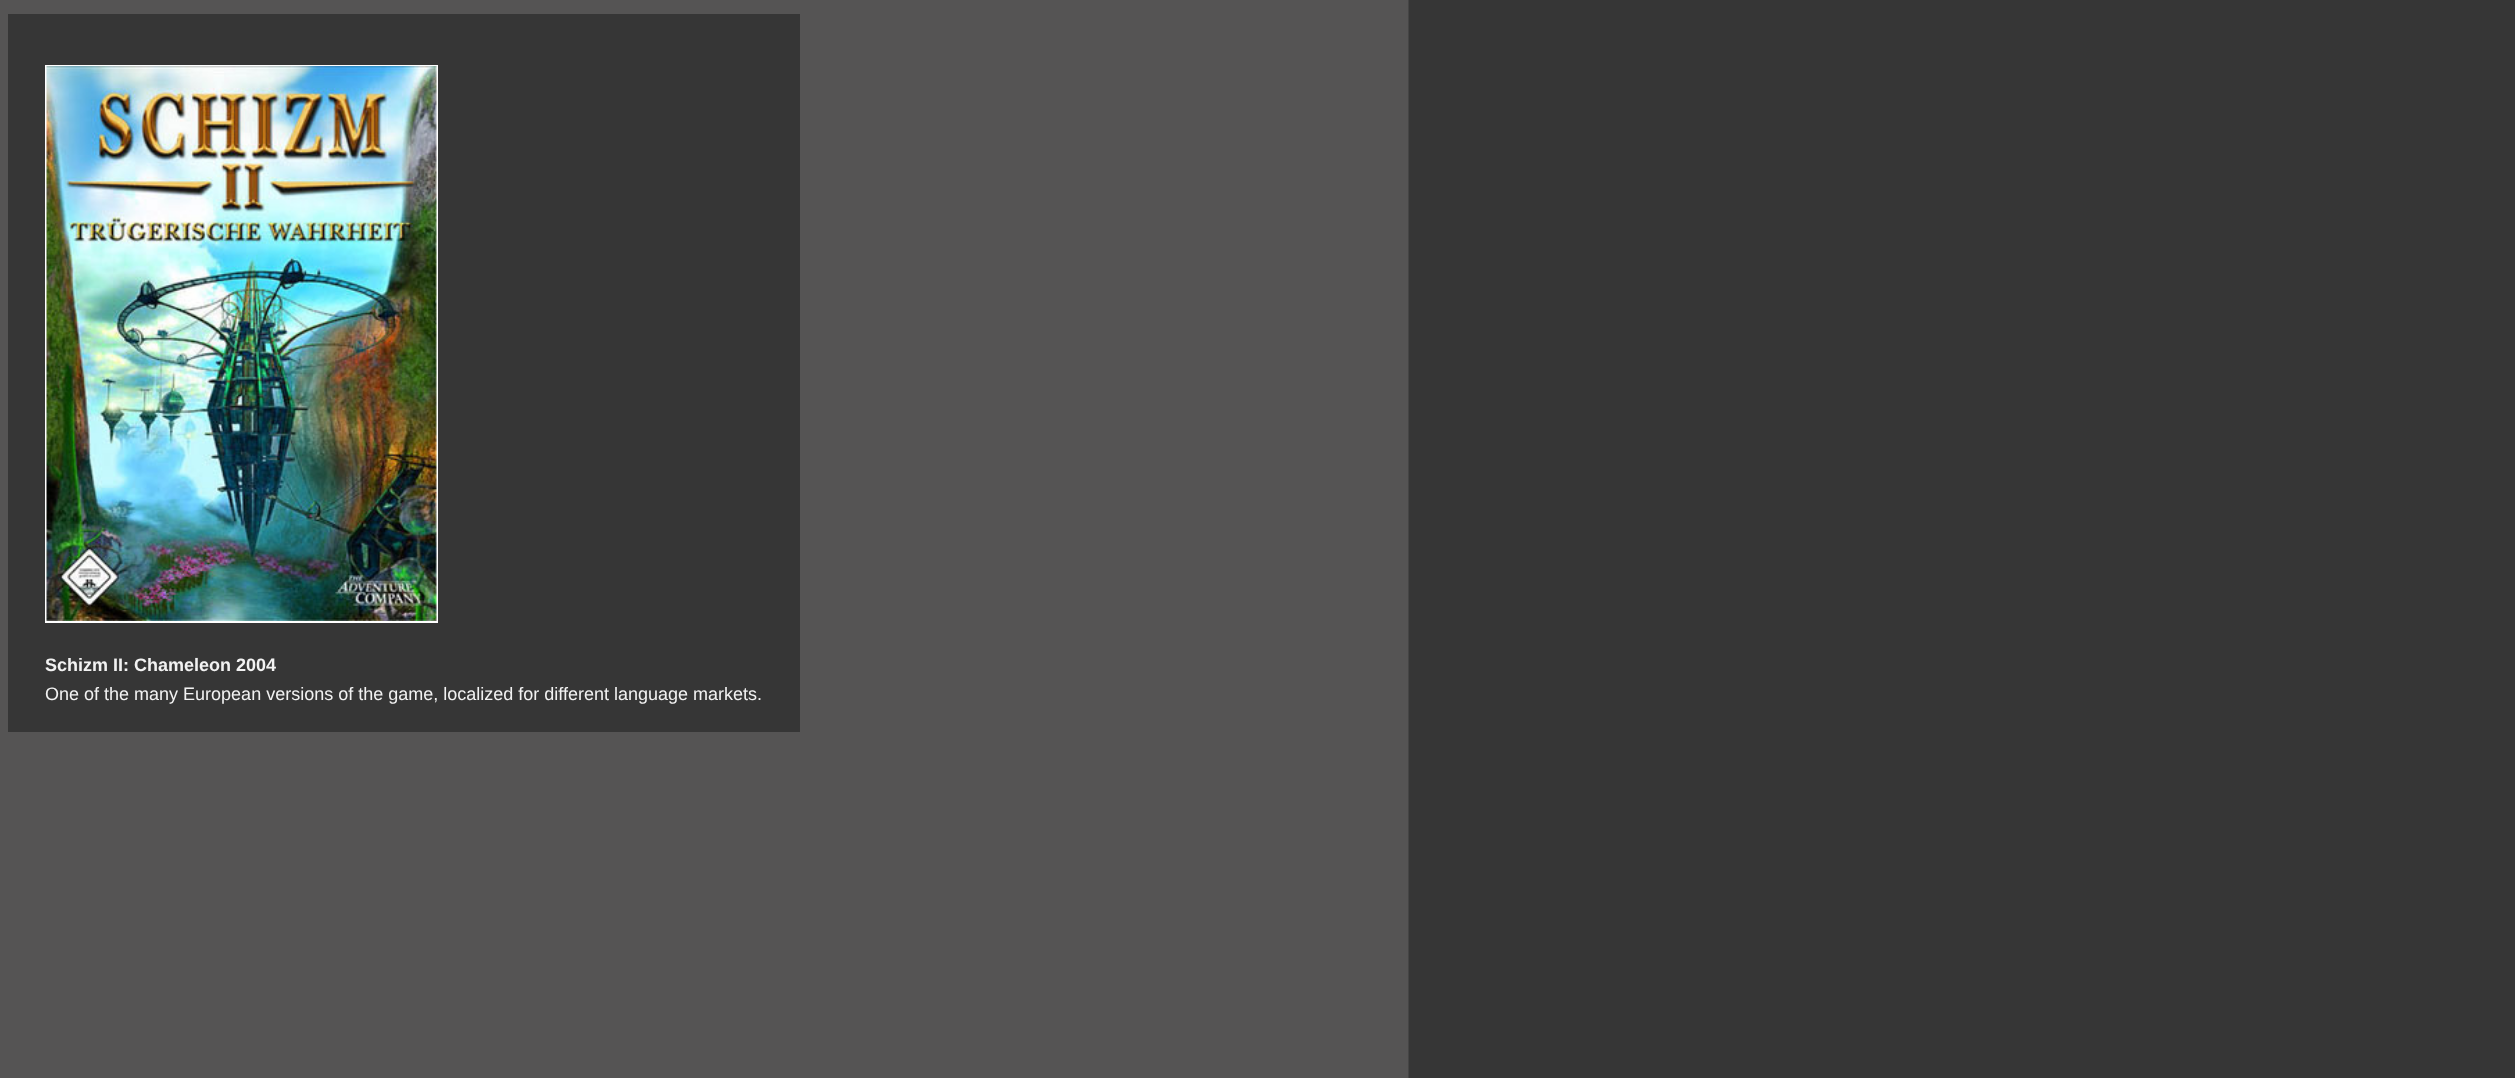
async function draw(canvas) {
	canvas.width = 2515;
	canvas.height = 1078;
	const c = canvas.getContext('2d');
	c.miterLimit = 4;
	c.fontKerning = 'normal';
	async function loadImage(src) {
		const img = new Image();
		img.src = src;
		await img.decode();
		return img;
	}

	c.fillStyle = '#fff';
	c.fillRect(0, 0, 2515, 1078);
	c.drawImage(await loadImage('img1.png'), 0, 0, 2515, 1078);
	c.fillStyle = '#363636';
	c.fillRect(8, 14, 792, 718);
	c.strokeStyle = '#fff';
	c.lineWidth = 2;
	c.strokeRect(46, 66, 391, 556);
	c.drawImage(await loadImage('img2.png'), 46, 66, 391, 555);
	c.font = 'bold 18px Liberation Sans';
	c.fillStyle = '#f2f2f2';
	c.fillText('Schizm II: Chameleon 2004', 45, 671);
	c.font = '18px Liberation Sans';
	c.fillText('One of the many European versions of the game, localized for different language markets.', 45, 700);
}

draw(document.querySelector('canvas'));
